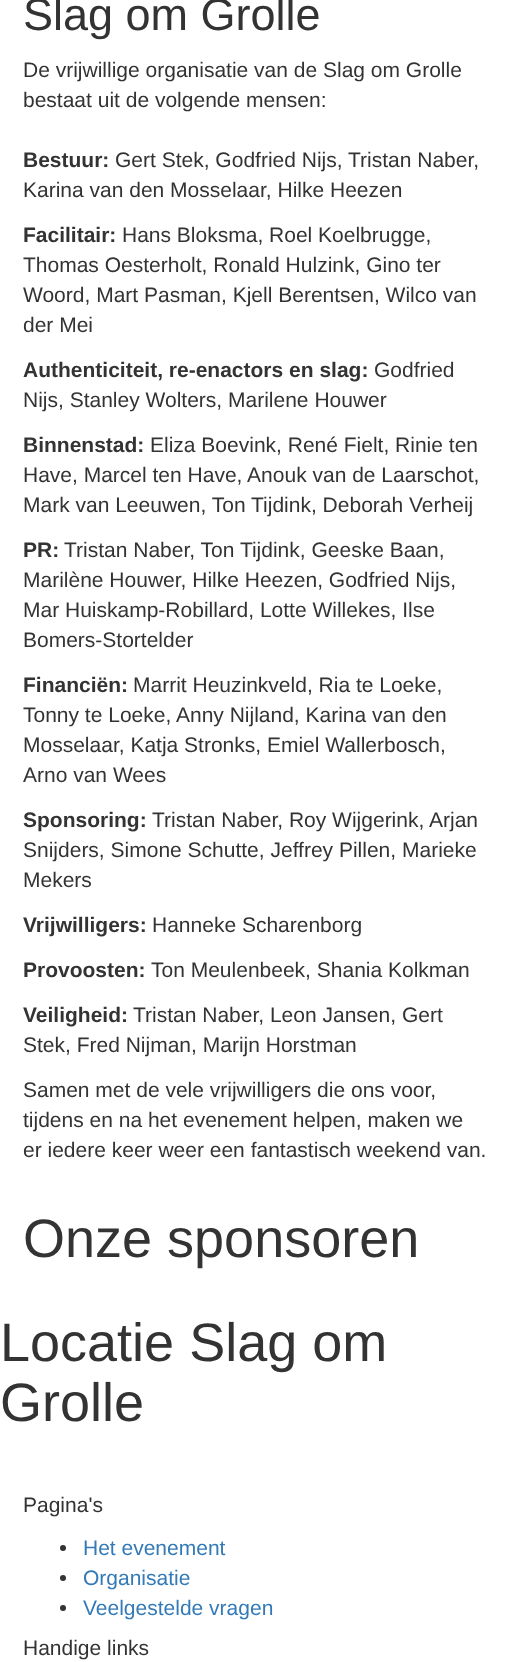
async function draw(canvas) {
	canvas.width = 508;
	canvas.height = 1662;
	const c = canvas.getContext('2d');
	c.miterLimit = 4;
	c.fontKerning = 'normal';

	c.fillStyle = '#fff';
	c.fillRect(0, 0, 508, 1662);
	c.font = '45px Liberation Sans';
	c.fillStyle = '#333';
	c.fillText('Slag om Grolle', 23, 30);
	c.font = '21px Liberation Sans';
	c.fillText('De vrijwillige organisatie van de Slag om Grolle', 23, 77);
	c.fillText('bestaat uit de volgende mensen:', 23, 107);
	c.font = 'bold 21px Liberation Sans';
	c.fillText('Bestuur:', 23, 167);
	c.font = '21px Liberation Sans';
	c.fillText('Gert Stek, Godfried Nijs, Tristan Naber,', 115, 167);
	c.fillText('Karina van den Mosselaar, Hilke Heezen', 23, 197);
	c.font = 'bold 21px Liberation Sans';
	c.fillText('Facilitair:', 23, 242);
	c.font = '21px Liberation Sans';
	for (const [text, x, y] of [
		['Hans Bloksma, Roel Koelbrugge,', 122, 242],
		['Thomas Oesterholt, Ronald Hulzink, Gino ter', 23, 272],
		['Woord, Mart Pasman, Kjell Berentsen, Wilco van', 23, 302],
		['der Mei', 23, 332],
	]) {
		c.fillText(text, x, y);
	}
	c.font = 'bold 21px Liberation Sans';
	c.fillText('Authenticiteit, re-enactors en slag:', 23, 377);
	c.font = '21px Liberation Sans';
	c.fillText('Godfried', 374, 377);
	c.fillText('Nijs, Stanley Wolters, Marilene Houwer', 23, 407);
	c.font = 'bold 21px Liberation Sans';
	c.fillText('Binnenstad:', 23, 452);
	c.font = '21px Liberation Sans';
	for (const [text, x, y] of [
		['Eliza Boevink, René Fielt, Rinie ten', 150, 452],
		['Have, Marcel ten Have, Anouk van de Laarschot,', 23, 482],
		['Mark van Leeuwen, Ton Tijdink, Deborah Verheij', 23, 512],
	]) {
		c.fillText(text, x, y);
	}
	c.font = 'bold 21px Liberation Sans';
	c.fillText('PR:', 23, 557);
	c.font = '21px Liberation Sans';
	for (const [text, x, y] of [
		['Tristan Naber, Ton Tijdink, Geeske Baan,', 64, 557],
		['Marilène Houwer, Hilke Heezen, Godfried Nijs,', 23, 587],
		['Mar Huiskamp-Robillard, Lotte Willekes, Ilse', 23, 617],
		['Bomers-Stortelder', 23, 647],
	]) {
		c.fillText(text, x, y);
	}
	c.font = 'bold 21px Liberation Sans';
	c.fillText('Financiën:', 23, 692);
	c.font = '21px Liberation Sans';
	for (const [text, x, y] of [
		['Marrit Heuzinkveld, Ria te Loeke,', 133, 692],
		['Tonny te Loeke, Anny Nijland, Karina van den', 23, 722],
		['Mosselaar, Katja Stronks, Emiel Wallerbosch,', 23, 752],
		['Arno van Wees', 23, 782],
	]) {
		c.fillText(text, x, y);
	}
	c.font = 'bold 21px Liberation Sans';
	c.fillText('Sponsoring:', 23, 827);
	c.font = '21px Liberation Sans';
	for (const [text, x, y] of [
		['Tristan Naber, Roy Wijgerink, Arjan', 152, 827],
		['Snijders, Simone Schutte, Jeffrey Pillen, Marieke', 23, 857],
		['Mekers', 23, 887],
	]) {
		c.fillText(text, x, y);
	}
	c.font = 'bold 21px Liberation Sans';
	c.fillText('Vrijwilligers:', 23, 932);
	c.font = '21px Liberation Sans';
	c.fillText('Hanneke Scharenborg', 152, 932);
	c.font = 'bold 21px Liberation Sans';
	c.fillText('Provoosten:', 23, 977);
	c.font = '21px Liberation Sans';
	c.fillText('Ton Meulenbeek, Shania Kolkman', 151, 977);
	c.font = 'bold 21px Liberation Sans';
	c.fillText('Veiligheid:', 23, 1022);
	c.font = '21px Liberation Sans';
	for (const [text, x, y] of [
		['Tristan Naber, Leon Jansen, Gert', 133, 1022],
		['Stek, Fred Nijman, Marijn Horstman', 23, 1052],
		['Samen met de vele vrijwilligers die ons voor,', 23, 1097],
		['tijdens en na het evenement helpen, maken we', 23, 1127],
		['er iedere keer weer een fantastisch weekend van.', 23, 1157],
	]) {
		c.fillText(text, x, y);
	}
	c.font = '54px Liberation Sans';
	for (const [text, x, y] of [
		['Onze sponsoren', 23, 1257],
		['Locatie Slag om', 0, 1361],
		['Grolle', 0, 1421],
	]) {
		c.fillText(text, x, y);
	}
	c.font = '21px Liberation Sans';
	c.fillText('Pagina\'s', 23, 1512);
	c.beginPath();
	c.arc(63, 1548, 3, 0, 2 * Math.PI);
	c.fill();
	c.fillStyle = '#337ab7';
	c.fillText('Het evenement', 83, 1555);
	c.fillStyle = '#333';
	c.beginPath();
	c.arc(63, 1578, 3, 0, 2 * Math.PI);
	c.fill();
	c.fillStyle = '#337ab7';
	c.fillText('Organisatie', 83, 1585);
	c.fillStyle = '#333';
	c.beginPath();
	c.arc(63, 1608, 3, 0, 2 * Math.PI);
	c.fill();
	c.fillStyle = '#337ab7';
	c.fillText('Veelgestelde vragen', 83, 1615);
	c.fillStyle = '#333';
	c.fillText('Handige links', 23, 1655);
}

draw(document.querySelector('canvas'));
